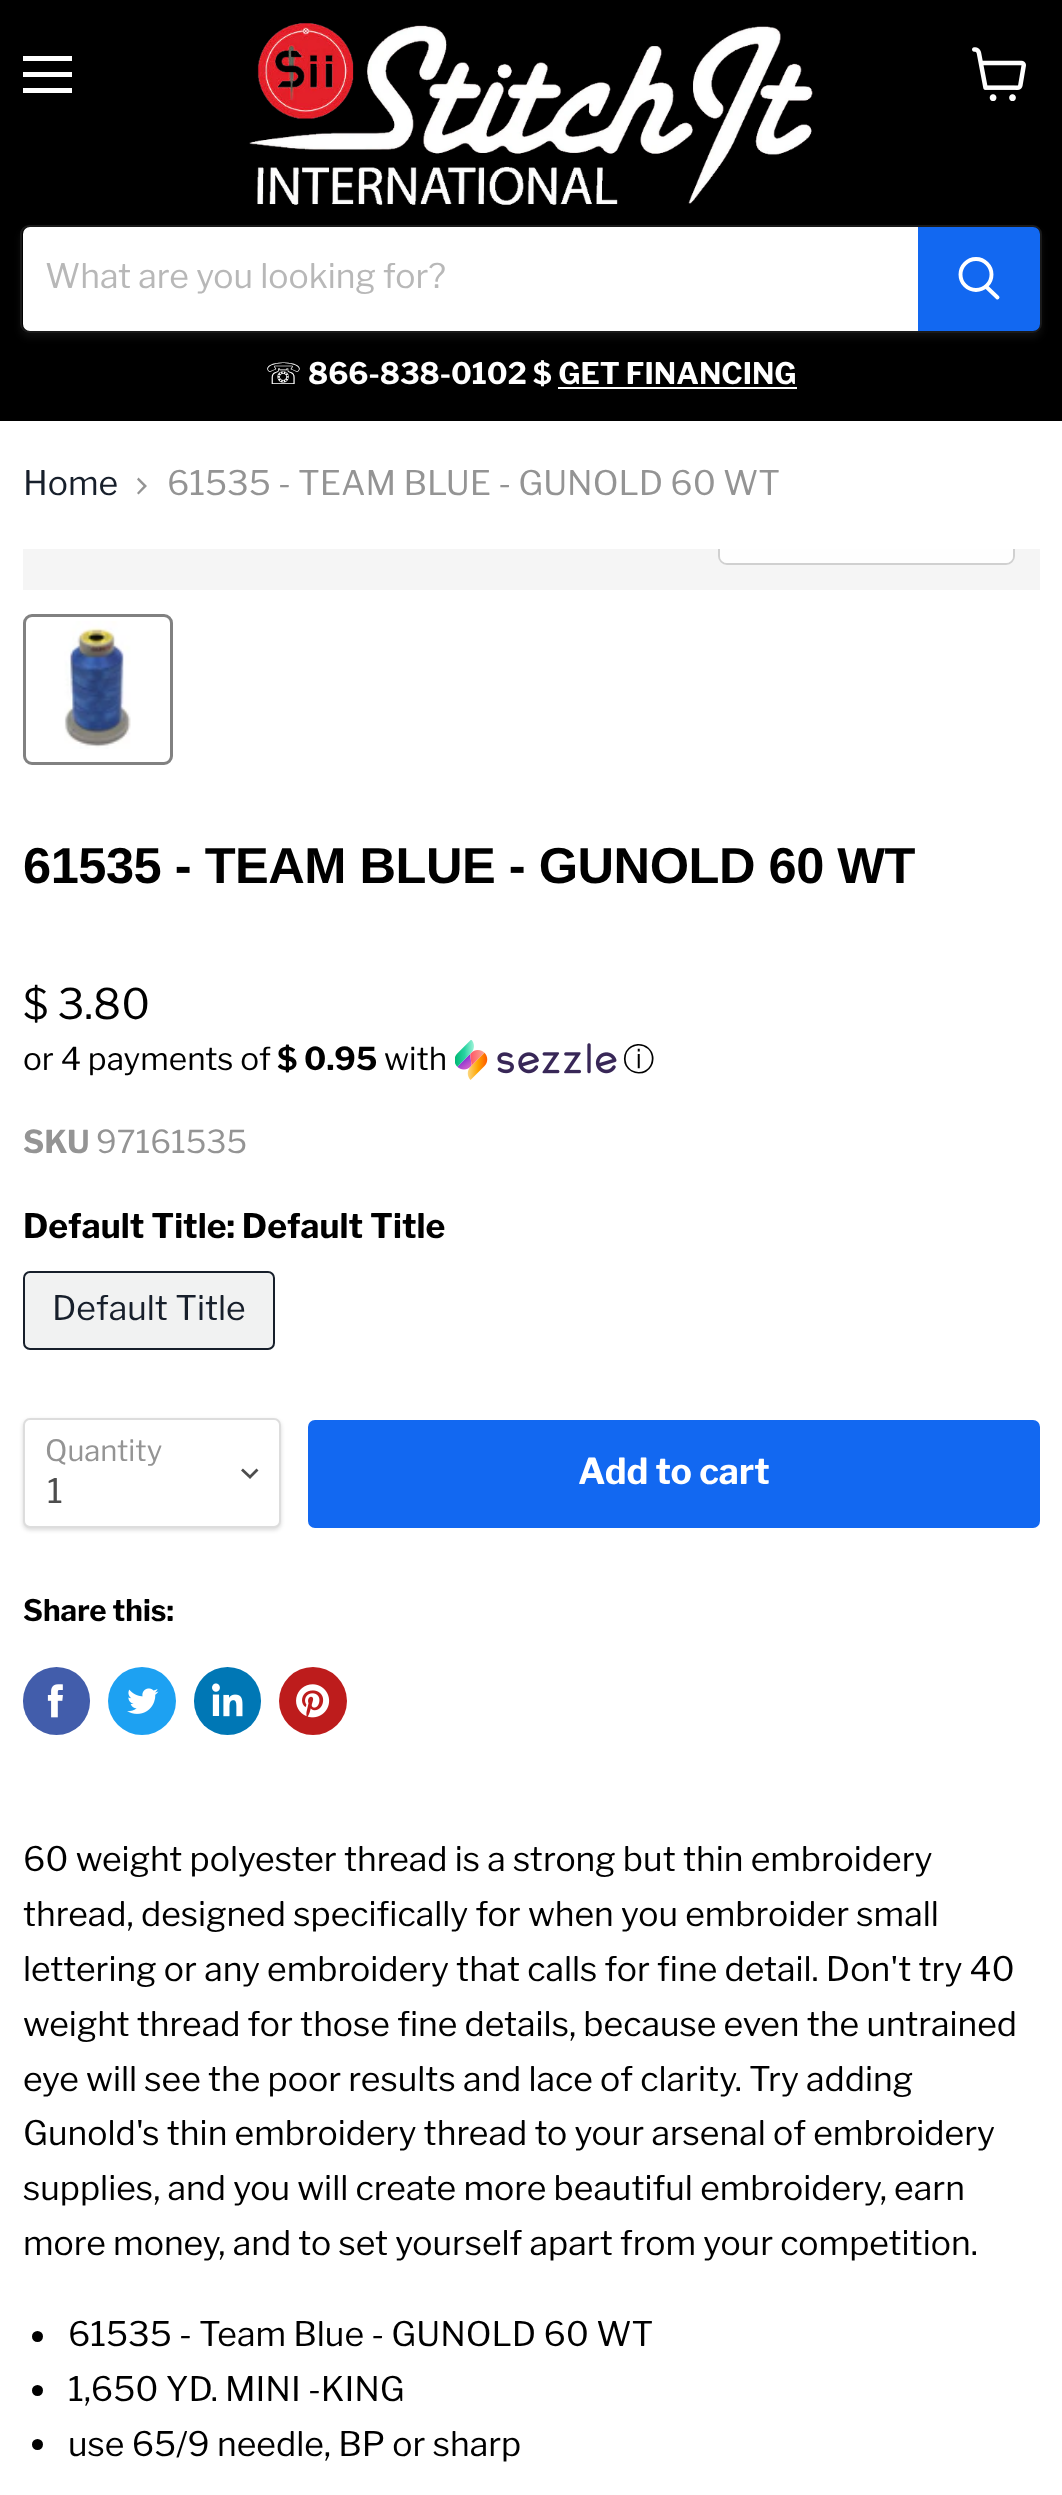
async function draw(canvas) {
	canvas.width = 1062;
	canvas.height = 2495;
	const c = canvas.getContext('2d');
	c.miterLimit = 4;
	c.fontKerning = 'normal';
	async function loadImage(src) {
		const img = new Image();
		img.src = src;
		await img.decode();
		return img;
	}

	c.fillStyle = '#fff';
	c.fillRect(0, 0, 1062, 2495);
	for (const [x, y, w, h, color] of [
		[0, 0, 1062, 421, '#000'],
		[23, 56, 49, 5, '#fff'],
		[23, 72, 49, 5, '#fff'],
		[23, 88, 49, 5, '#fff'],
	]) {
		c.fillStyle = color;
		c.fillRect(x, y, w, h);
	}
	c.drawImage(await loadImage('img1.png'), 972, 47, 54, 54);
	c.drawImage(await loadImage('img2.png'), 249, 23, 564, 182);
	c.save();
	c.beginPath();
	c.moveTo(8, 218);
	c.lineTo(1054, 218);
	c.lineTo(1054, 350);
	c.lineTo(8, 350);
	c.closePath();
	c.moveTo(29, 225);
	c.lineTo(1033, 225);
	c.bezierCurveTo(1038, 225, 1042, 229, 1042, 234);
	c.lineTo(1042, 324);
	c.bezierCurveTo(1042, 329, 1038, 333, 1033, 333);
	c.lineTo(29, 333);
	c.bezierCurveTo(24, 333, 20, 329, 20, 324);
	c.lineTo(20, 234);
	c.bezierCurveTo(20, 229, 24, 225, 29, 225);
	c.closePath();
	c.clip('evenodd');
	c.fillStyle = '#8080801c';
	c.filter = 'blur(3.5px)';
	c.beginPath();
	c.roundRect(20, 230, 1022, 108, 9);
	c.fill();
	c.filter = 'none';
	c.restore();
	c.beginPath();
	c.roundRect(21, 226, 1020, 106, 8);
	c.strokeStyle = '#80808033';
	c.lineWidth = 2;
	c.stroke();
	c.beginPath();
	c.roundRect(23, 227, 895, 104, [7, 0, 0, 7]);
	c.fill();
	c.font = '33.75px Libre Franklin';
	c.fillStyle = '#b8b8b8';
	c.fillText('What are you looking for?', 45, 288);
	c.fillStyle = '#1268f1';
	c.beginPath();
	c.roundRect(919, 228, 120, 102, [0, 6, 6, 0]);
	c.fill();
	c.strokeStyle = '#1268f1';
	c.stroke();
	c.beginPath();
	c.moveTo(997.5, 297.5);
	c.lineTo(986.5, 287);
	c.strokeStyle = '#fff';
	c.lineWidth = 3.9;
	c.lineCap = 'round';
	c.stroke();
	c.beginPath();
	c.arc(976, 274.5, 15.5, 0, 2 * Math.PI);
	c.stroke();
	c.font = '29.5px DejaVu Sans';
	c.fillStyle = '#fff';
	c.fillText('☏', 265, 384);
	c.font = 'bold 29.5px Libre Franklin';
	c.fillText('866-838-0102 $ GET FINANCING', 308, 384);
	c.fillRect(558, 387, 239, 2);
	c.font = '33.75px Libre Franklin';
	c.fillStyle = '#171f2b';
	c.fillText('Home', 23, 495);
	c.fillStyle = '#949494';
	c.beginPath();
	c.moveTo(137, 493);
	c.lineTo(138.5, 494.5);
	c.lineTo(147, 486);
	c.lineTo(138.5, 477.5);
	c.lineTo(137, 479.5);
	c.lineTo(143.5, 486);
	c.closePath();
	c.fill('evenodd');
	c.fillText('61535 - TEAM BLUE - GUNOLD 60 WT', 167, 495);
	c.fillStyle = '#f5f5f5';
	c.fillRect(23, 549, 1017, 41);
	c.save();
	c.beginPath();
	c.rect(23, 549, 1017, 41);
	c.clip();
	c.beginPath();
	c.roundRect(719, 501, 295, 63, 8);
	c.strokeStyle = '#d0d0d0';
	c.lineWidth = 2;
	c.stroke();
	c.restore();
	c.fillStyle = '#ffffffe6';
	c.beginPath();
	c.roundRect(720, 549, 293, 14, [0, 0, 7, 7]);
	c.fill();
	c.beginPath();
	c.roundRect(24.5, 615.5, 147, 148, 7.5);
	c.strokeStyle = '#818181';
	c.lineWidth = 3;
	c.stroke();
	c.drawImage(await loadImage('img3.png'), 64, 621, 67, 128);
	c.letterSpacing = '-0.5px';
	c.font = 'bold 50.6px Arimo';
	c.fillStyle = '#000';
	c.fillText('61535 - TEAM BLUE - GUNOLD 60 WT', 23, 883);
	c.letterSpacing = '0px';
	c.font = '42px Libre Franklin';
	c.fillText('$ 3.80', 23, 1019);
	c.font = '31.5px Libre Franklin';
	c.fillText('or 4 payments of', 23, 1070);
	c.font = 'bold 31.5px Libre Franklin';
	c.fillText('$ 0.95', 277, 1070);
	c.font = '31.5px Libre Franklin';
	c.fillText('with', 384, 1070);
	c.drawImage(await loadImage('img4.png'), 455, 1040, 162, 40);
	c.font = '500 31.5px WenQuanYi Zen Hei';
	c.fillText('ⓘ', 623, 1070);
	c.font = 'bold 31.5px Libre Franklin';
	c.fillStyle = '#949494';
	c.fillText('SKU', 23, 1153);
	c.font = '31.5px Libre Franklin';
	c.fillText('97161535', 96, 1153);
	c.font = 'bold 33.75px Libre Franklin';
	c.fillStyle = '#000';
	c.fillText('Default Title: Default Title', 23, 1238);
	c.fillStyle = '#f1f2f2';
	c.beginPath();
	c.roundRect(24, 1272, 250, 77, 6);
	c.fill();
	c.strokeStyle = '#171f2b';
	c.lineWidth = 2;
	c.stroke();
	c.font = '33.75px Libre Franklin';
	c.fillStyle = '#171f2b';
	c.fillText('Default Title', 52, 1320);
	c.fillStyle = '#00000026';
	c.filter = 'blur(2px)';
	c.beginPath();
	c.roundRect(23, 1420, 258, 110, 7);
	c.fill();
	c.filter = 'none';
	c.fillStyle = '#fff';
	c.beginPath();
	c.roundRect(24, 1419, 256, 108, 6);
	c.fill();
	c.strokeStyle = '#ddd';
	c.stroke();
	c.font = '29.25px Libre Franklin';
	c.fillStyle = '#949494';
	c.fillText('Quantity', 45, 1461);
	c.beginPath();
	c.moveTo(250, 1477);
	c.lineTo(256.5, 1470.5);
	c.moveTo(250, 1477);
	c.lineTo(243, 1470.5);
	c.strokeStyle = '#4d4d4d';
	c.lineWidth = 2.8;
	c.lineCap = 'square';
	c.stroke();
	c.font = '33.75px Libre Franklin';
	c.fillStyle = '#4d4d4d';
	c.fillText('1', 47, 1503);
	c.fillStyle = '#1268f1';
	c.beginPath();
	c.roundRect(309, 1421, 730, 106, 6);
	c.fill();
	c.strokeStyle = '#1268f1';
	c.lineWidth = 2;
	c.stroke();
	c.font = 'bold 35.75px Libre Franklin';
	c.fillStyle = '#fff';
	c.fillText('Add to cart', 578, 1484);
	c.font = 'bold 29.5px Libre Franklin';
	c.fillStyle = '#000';
	c.fillText('Share this:', 23, 1621);
	c.fillStyle = '#425dab';
	c.beginPath();
	c.roundRect(23, 1667, 67, 68, 33.5);
	c.fill();
	c.drawImage(await loadImage('img5.png'), 47, 1684, 16, 34);
	c.fillStyle = '#1da1f2';
	c.beginPath();
	c.arc(142, 1701, 34, 0, 2 * Math.PI);
	c.fill();
	c.drawImage(await loadImage('img6.png'), 127, 1688, 32, 26);
	c.fillStyle = '#0077b5';
	c.beginPath();
	c.roundRect(194, 1667, 67, 68, 33.5);
	c.fill();
	c.drawImage(await loadImage('img7.png'), 212, 1683, 31, 34);
	c.fillStyle = '#bd1c1c';
	c.beginPath();
	c.arc(313, 1701, 34, 0, 2 * Math.PI);
	c.fill();
	c.drawImage(await loadImage('img8.png'), 296, 1684, 34, 34);
	c.font = '33.75px Libre Franklin';
	c.fillStyle = '#000';
	for (const [text, x, y] of [
		['60 weight polyester thread is a strong but thin embroidery', 23, 1871],
		['thread, designed specifically for when you embroider small', 23, 1926],
		['lettering or any embroidery that calls for fine detail. Don\'t try 40', 23, 1981],
		['weight thread for those fine details, because even the untrained', 23, 2036],
		['eye will see the poor results and lace of clarity. Try adding', 23, 2091],
		['Gunold\'s thin embroidery thread to your arsenal of embroidery', 23, 2145],
		['supplies, and you will create more beautiful embroidery, earn', 23, 2200],
		['more money, and to set yourself apart from your competition.', 23, 2255],
	]) {
		c.fillText(text, x, y);
	}
	c.beginPath();
	c.arc(37.5, 2336.5, 5.5, 0, 2 * Math.PI);
	c.fill();
	c.fillText('61535 - Team Blue - GUNOLD 60 WT', 68, 2346);
	c.beginPath();
	c.arc(37.5, 2390.5, 5.5, 0, 2 * Math.PI);
	c.fill();
	c.fillText('1,650 YD. MINI -KING', 68, 2401);
	c.beginPath();
	c.arc(37.5, 2444.5, 5.5, 0, 2 * Math.PI);
	c.fill();
	c.fillText('use 65/9 needle, BP or sharp', 68, 2456);
}

draw(document.querySelector('canvas'));
